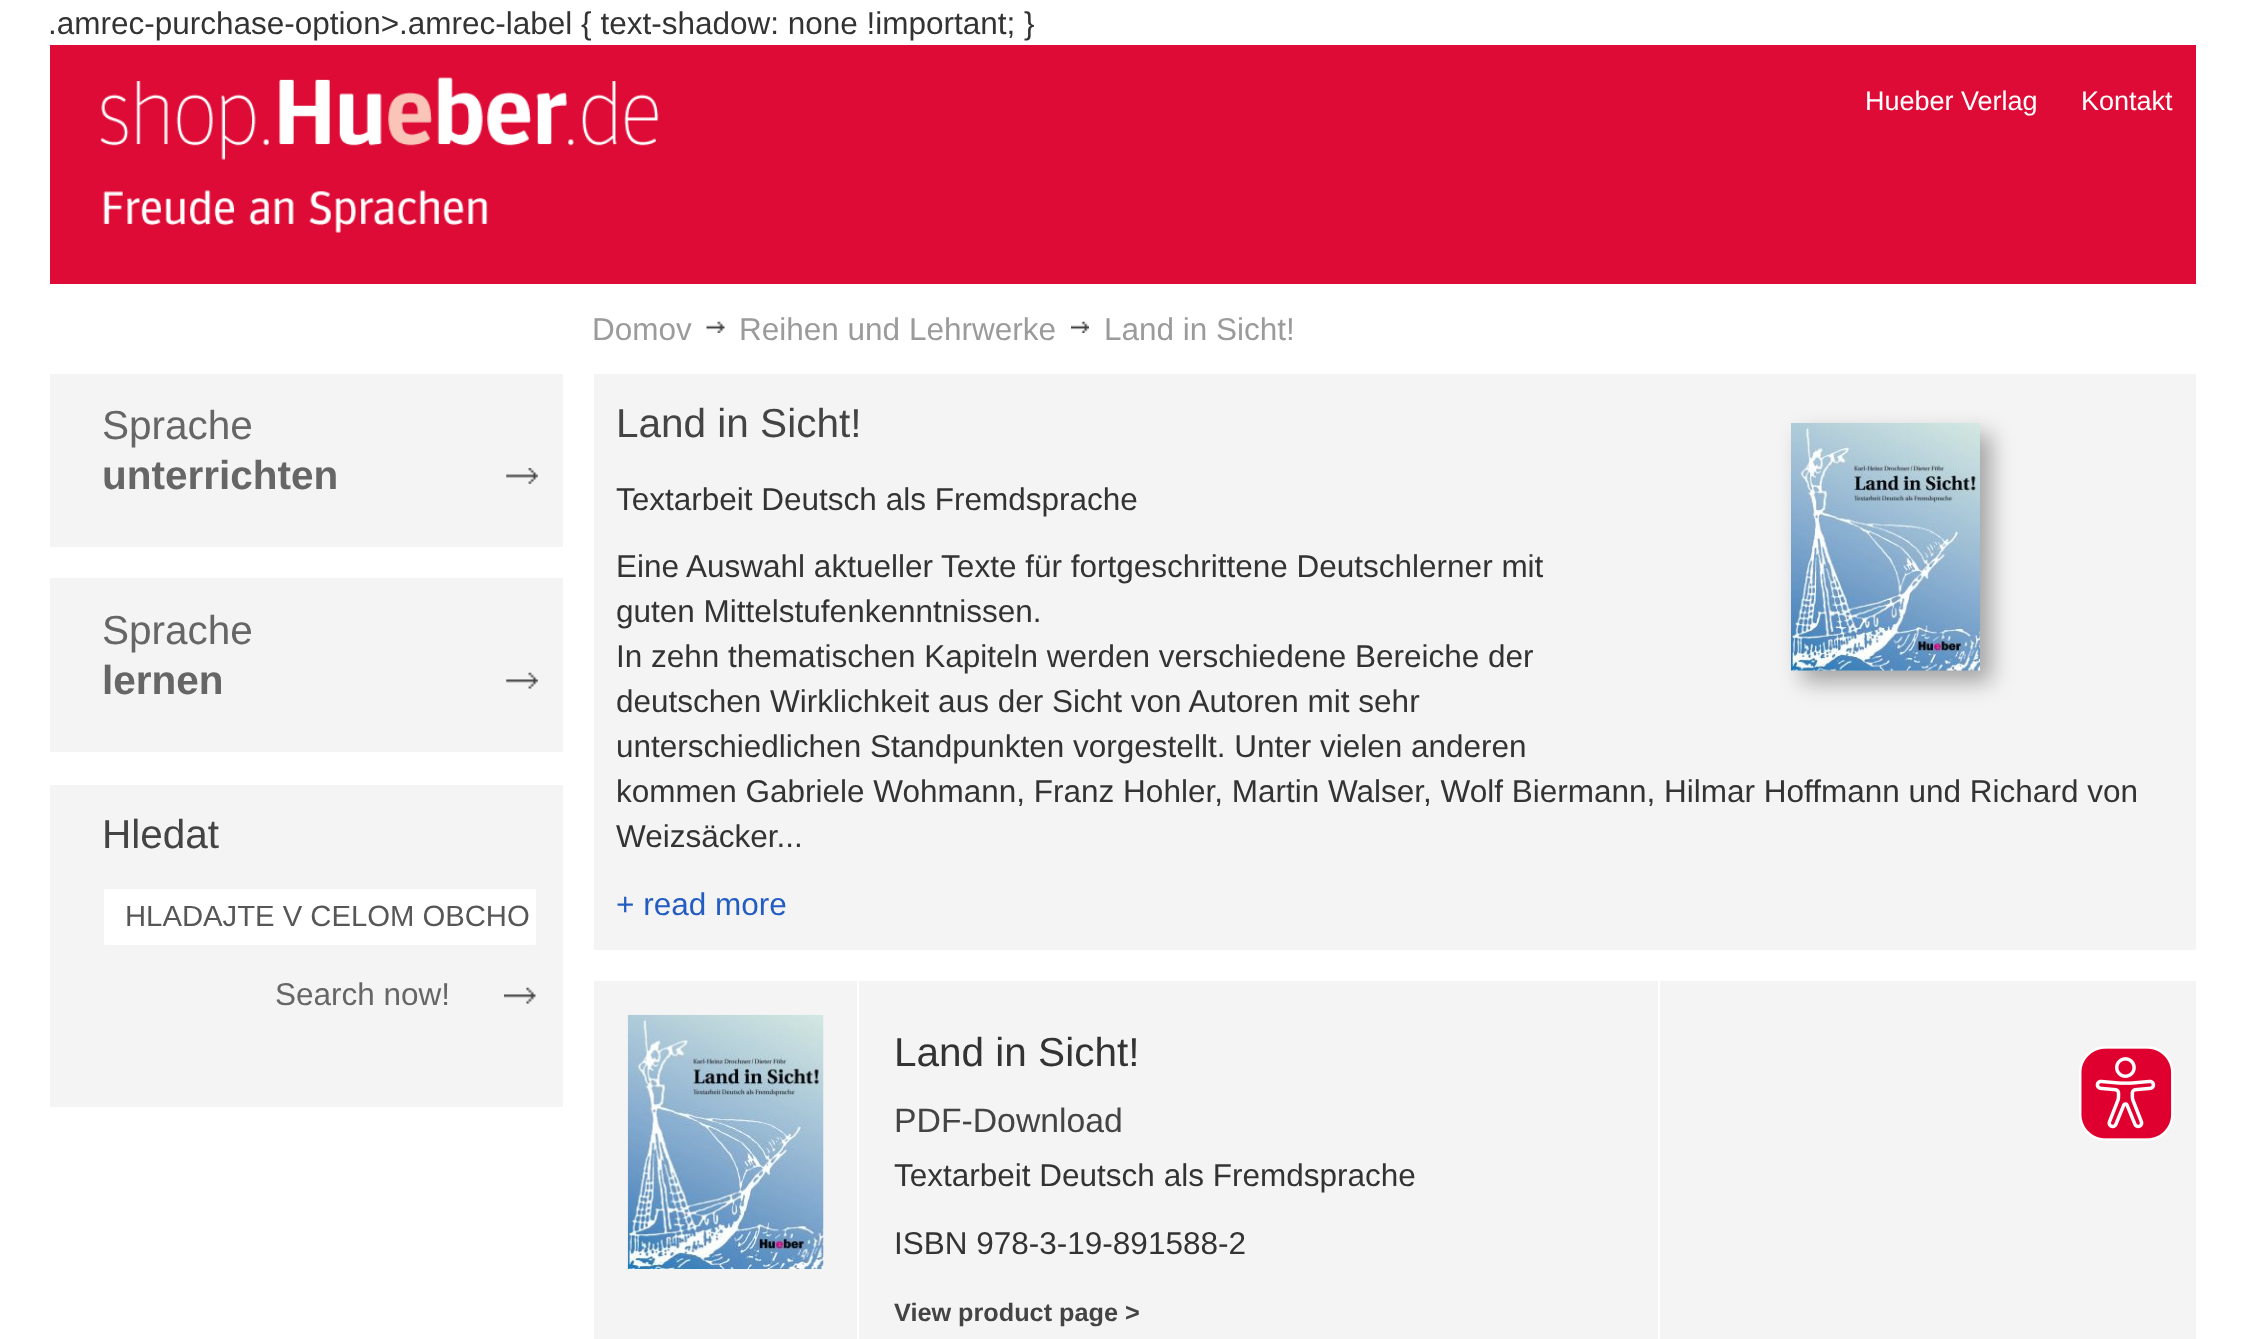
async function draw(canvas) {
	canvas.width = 2243;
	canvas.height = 1339;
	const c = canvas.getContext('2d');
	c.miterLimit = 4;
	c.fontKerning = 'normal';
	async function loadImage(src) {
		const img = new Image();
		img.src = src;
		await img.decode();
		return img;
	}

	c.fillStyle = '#fff';
	c.fillRect(0, 0, 2243, 1339);
	c.font = '31.5px Liberation Sans';
	c.fillStyle = '#333';
	c.fillText('.amrec-purchase-option>.amrec-label { text-shadow: none !important; }', 48, 34);
	c.fillStyle = '#dd0b35';
	c.fillRect(50, 45, 2146, 239);
	c.drawImage(await loadImage('img1.png'), 100, 77, 559, 156);
	c.font = '27px Liberation Sans';
	c.fillStyle = '#fff';
	c.fillText('Hueber Verlag', 1865, 110);
	c.fillText('Kontakt', 2081, 110);
	c.font = '31.5px Liberation Sans';
	c.fillStyle = '#9b9b9b';
	c.fillText('Domov', 592, 340);
	c.drawImage(await loadImage('img2.png'), 706, 321, 19, 12);
	c.fillText('Reihen und Lehrwerke', 739, 340);
	c.drawImage(await loadImage('img3.png'), 1071, 321, 18, 12);
	c.fillText('Land in Sicht!', 1104, 340);
	c.fillStyle = '#f4f4f4';
	c.fillRect(50, 374, 513, 173);
	c.drawImage(await loadImage('img4.png'), 506, 468, 32, 16);
	c.font = '40.5px Liberation Sans';
	c.fillStyle = '#666';
	c.fillText('Sprache', 102, 439);
	c.font = 'bold 40.5px Liberation Sans';
	c.fillText('unterrichten', 102, 489);
	c.fillStyle = '#f4f4f4';
	c.fillRect(50, 578, 513, 174);
	c.drawImage(await loadImage('img5.png'), 506, 672, 32, 17);
	c.font = '40.5px Liberation Sans';
	c.fillStyle = '#666';
	c.fillText('Sprache', 102, 644);
	c.font = 'bold 40.5px Liberation Sans';
	c.fillText('lernen', 102, 694);
	c.fillStyle = '#f4f4f4';
	c.fillRect(50, 785, 513, 322);
	c.font = '40.5px Liberation Sans';
	c.fillStyle = '#444';
	c.fillText('Hledat', 102, 848);
	c.fillStyle = '#fff';
	c.beginPath();
	c.roundRect(104, 889, 432, 56, 2);
	c.fill();
	c.font = '29.25px Liberation Sans';
	c.fillStyle = '#575757';
	c.fillText('HLADAJTE V CELOM OBCHO', 125, 926);
	c.drawImage(await loadImage('img6.png'), 504, 987, 32, 17);
	c.font = '31.5px Liberation Sans';
	c.fillStyle = '#666';
	c.fillText('Search now!', 275, 1005);
	c.fillStyle = '#f4f4f4';
	c.fillRect(594, 374, 1602, 576);
	c.font = '40.5px Liberation Sans';
	c.fillStyle = '#444';
	c.fillText('Land in Sicht!', 616, 437);
	c.fillStyle = '#00000054';
	c.filter = 'blur(11px)';
	c.beginPath();
	c.rect(1802, 434, 189, 248);
	c.fill();
	c.filter = 'none';
	c.drawImage(await loadImage('img7.png'), 1791, 423, 189, 248);
	c.font = '31.5px Liberation Sans';
	c.fillStyle = '#333';
	for (const [text, x, y] of [
		['Textarbeit Deutsch als Fremdsprache', 616, 510],
		['Eine Auswahl aktueller Texte für fortgeschrittene Deutschlerner mit', 616, 577],
		['guten Mittelstufenkenntnissen.', 616, 622],
		['In zehn thematischen Kapiteln werden verschiedene Bereiche der', 616, 667],
		['deutschen Wirklichkeit aus der Sicht von Autoren mit sehr', 616, 712],
		['unterschiedlichen Standpunkten vorgestellt. Unter vielen anderen', 616, 757],
		['kommen Gabriele Wohmann, Franz Hohler, Martin Walser, Wolf Biermann, Hilmar Hoffmann und Richard von', 616, 802],
		['Weizsäcker...', 616, 847],
	]) {
		c.fillText(text, x, y);
	}
	c.fillStyle = '#245dc1';
	c.fillText('+ read more', 616, 915);
	c.fillStyle = '#f4f4f4';
	c.fillRect(594, 981, 1602, 358);
	c.fillStyle = '#fff';
	c.fillRect(857, 981, 2, 358);
	c.drawImage(await loadImage('img8.png'), 627, 1014, 197, 255);
	c.fillRect(1658, 981, 2, 358);
	c.font = '40.5px Liberation Sans';
	c.fillStyle = '#333';
	c.fillText('Land in Sicht!', 894, 1066);
	c.font = '33.75px Liberation Sans';
	c.fillStyle = '#444';
	c.fillText('PDF-Download', 894, 1132);
	c.font = '31.5px Liberation Sans';
	c.fillStyle = '#333';
	c.fillText('Textarbeit Deutsch als Fremdsprache', 894, 1186);
	c.fillText('ISBN 978-3-19-891588-2', 894, 1254);
	c.font = 'bold 25.25px Liberation Sans';
	c.fillStyle = '#444';
	c.fillText('View product page >', 894, 1321);
	c.drawImage(await loadImage('img9.png'), 2079, 1046, 95, 95);
}

draw(document.querySelector('canvas'));
